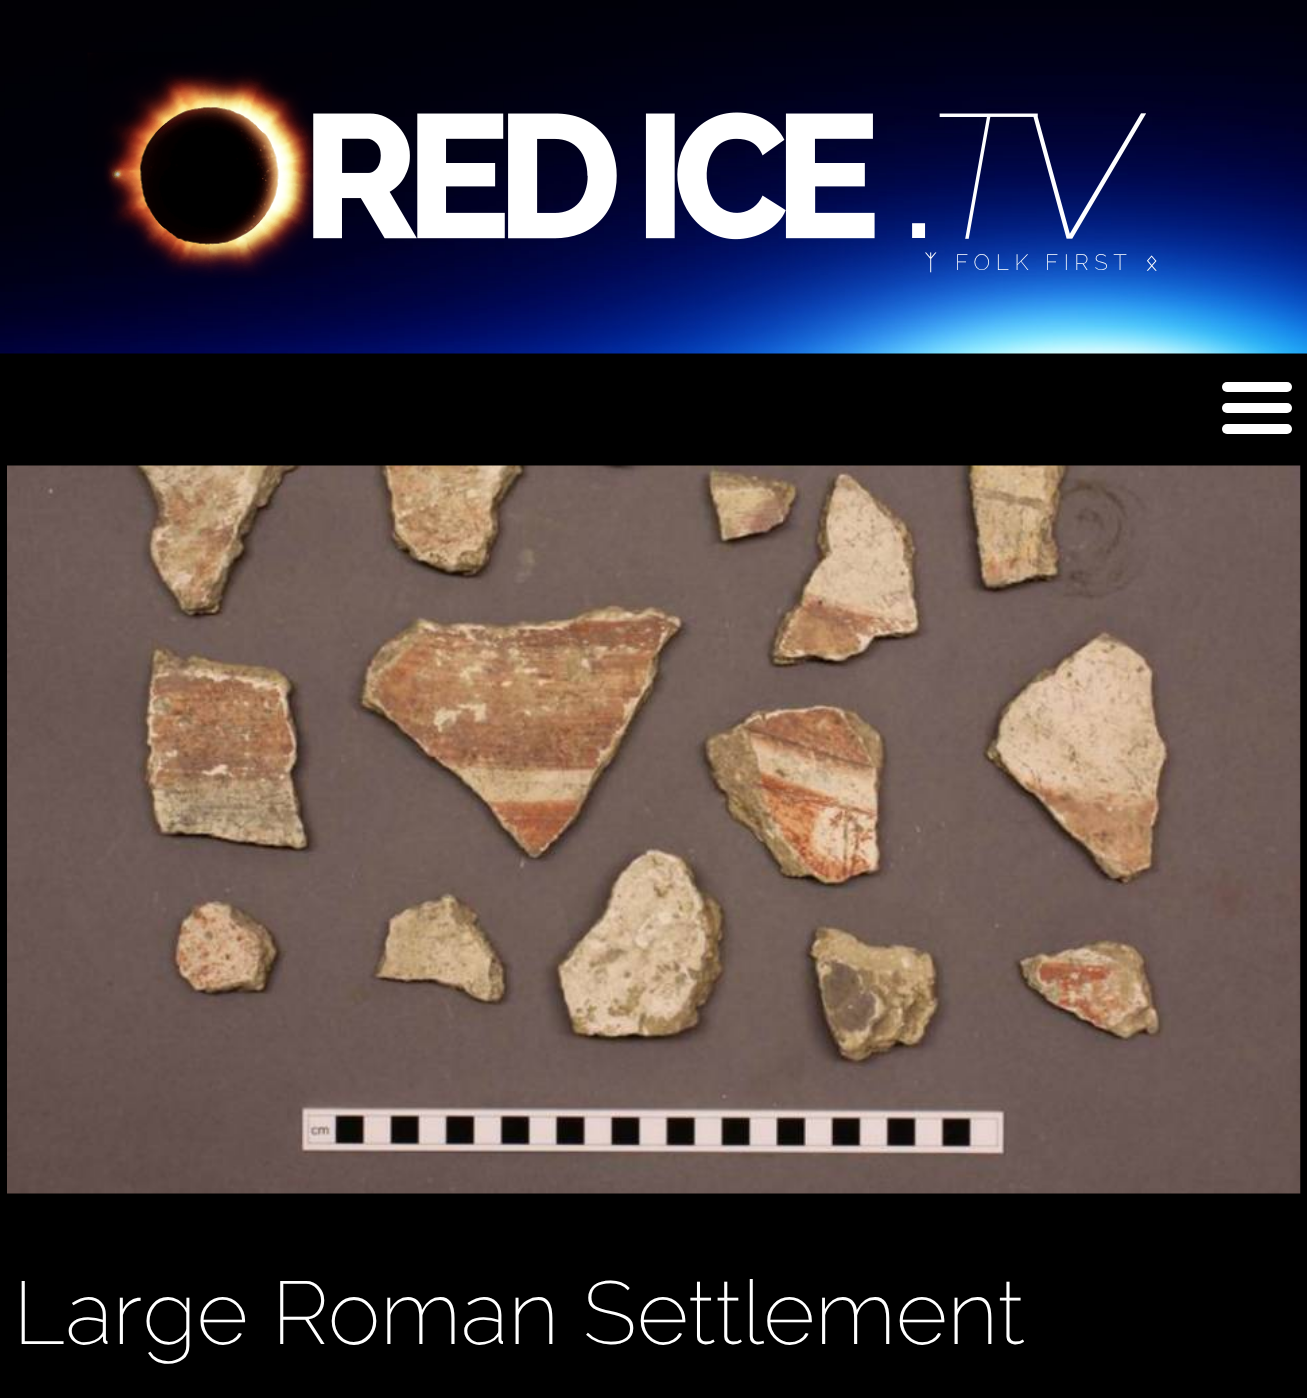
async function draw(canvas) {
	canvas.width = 1307;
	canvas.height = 1398;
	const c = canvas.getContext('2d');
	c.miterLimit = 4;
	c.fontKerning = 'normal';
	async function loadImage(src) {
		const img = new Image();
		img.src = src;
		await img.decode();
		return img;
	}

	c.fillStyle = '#000';
	c.fillRect(0, 0, 1307, 1398);
	c.drawImage(await loadImage('img1.png'), 0, 0, 1307, 354);
	c.drawImage(await loadImage('img3.png'), 87, 52, 245, 226);
	c.drawImage(await loadImage('img2.png'), 313, 112, 833, 128);
	c.letterSpacing = '5.5px';
	c.font = '22.25px FreeMono';
	c.fillStyle = '#fff';
	c.fillText('ᛉ', 924, 270);
	c.font = '200 22.25px Raleway';
	c.fillText('FOLK FIRST', 955, 270);
	c.font = '22.25px FreeMono';
	c.fillText('ᛟ', 1145, 270);
	c.beginPath();
	c.roundRect(1222, 382, 35, 10, [5, 0, 0, 5]);
	c.fill();
	c.beginPath();
	c.roundRect(1257, 382, 35, 10, [0, 5, 5, 0]);
	c.fill();
	c.beginPath();
	c.roundRect(1222, 403, 35, 10, [5, 0, 0, 5]);
	c.fill();
	c.beginPath();
	c.roundRect(1257, 403, 35, 10, [0, 5, 5, 0]);
	c.fill();
	c.beginPath();
	c.roundRect(1222, 424, 35, 10, [5, 0, 0, 5]);
	c.fill();
	c.beginPath();
	c.roundRect(1257, 424, 35, 10, [0, 5, 5, 0]);
	c.fill();
	c.drawImage(await loadImage('img4.png'), 7, 465, 1294, 729);
	c.letterSpacing = '0px';
	c.font = '200 88.9px Raleway';
	c.fillText('Large Roman Settlement', 13, 1344);
}

draw(document.querySelector('canvas'));
